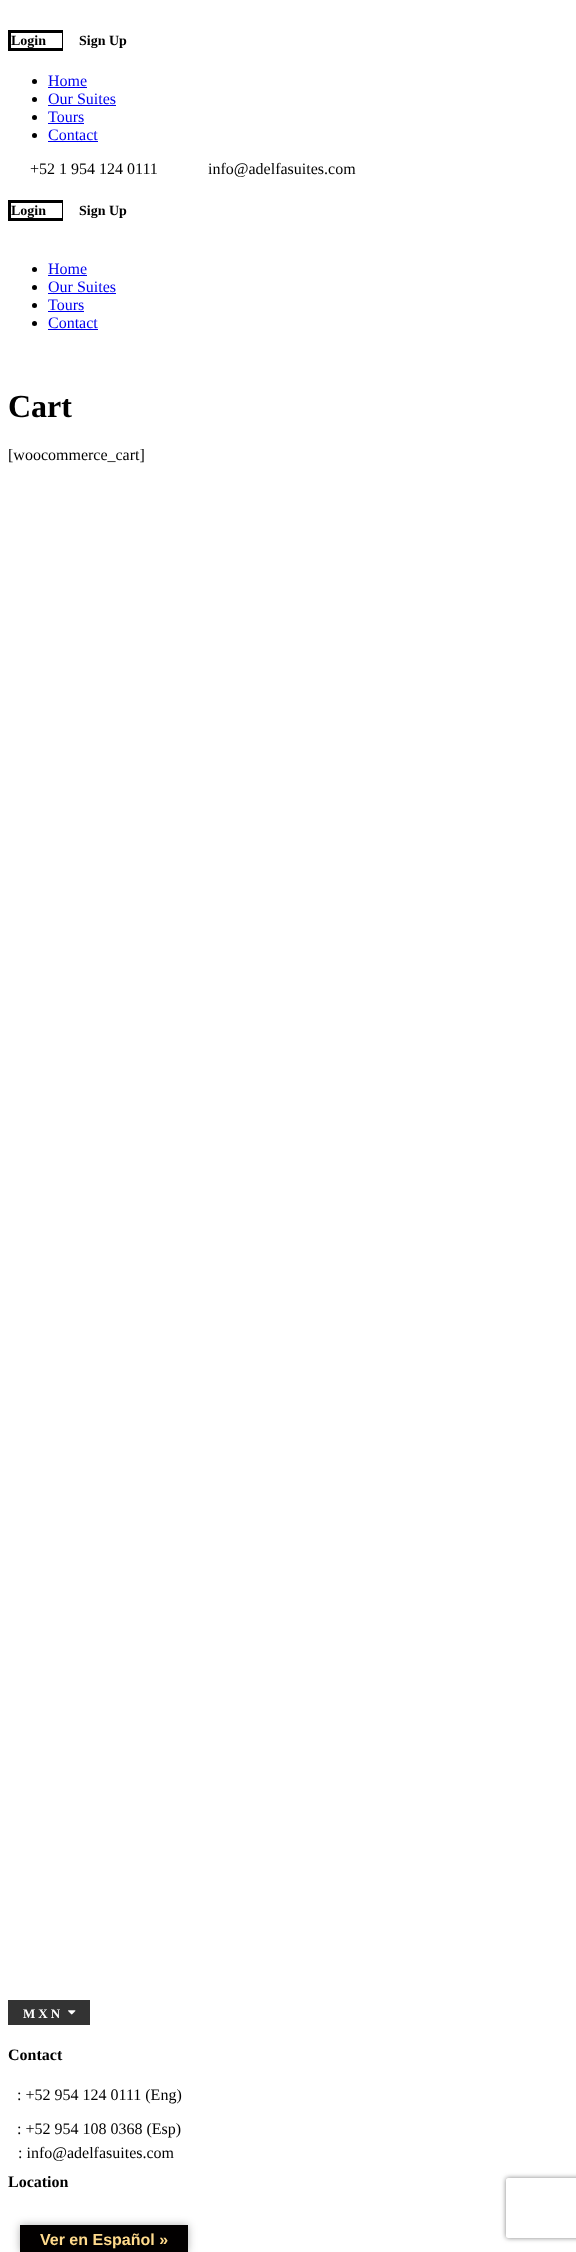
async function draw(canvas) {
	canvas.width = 576;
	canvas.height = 2252;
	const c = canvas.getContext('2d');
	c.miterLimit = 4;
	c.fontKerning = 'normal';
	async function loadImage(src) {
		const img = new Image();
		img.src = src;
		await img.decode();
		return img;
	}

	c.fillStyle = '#fff';
	c.fillRect(0, 0, 576, 2252);
	for (const [x, y, w, h, color] of [
		[8, 30, 55, 3, '#000'],
		[62, 30, 1, 21, '#000'],
		[8, 48, 55, 3, '#000'],
	]) {
		c.fillStyle = color;
		c.fillRect(x, y, w, h);
	}
	c.font = 'bold 14px Liberation Serif';
	c.fillText('Login', 11, 45);
	c.fillRect(8, 30, 3, 21);
	c.fillText('Sign Up', 79, 45);
	c.beginPath();
	c.arc(34.5, 81.5, 2.5, 0, 2 * Math.PI);
	c.fill();
	c.font = '16px Liberation Serif';
	c.fillStyle = '#00e';
	c.fillText('Home', 48, 86);
	c.fillRect(48, 87, 39, 1);
	c.fillStyle = '#000';
	c.beginPath();
	c.arc(34.5, 99.5, 2.5, 0, 2 * Math.PI);
	c.fill();
	c.fillStyle = '#00e';
	c.fillText('Our Suites', 48, 104);
	c.fillRect(48, 105, 68, 1);
	c.fillStyle = '#000';
	c.beginPath();
	c.arc(34.5, 117.5, 2.5, 0, 2 * Math.PI);
	c.fill();
	c.fillStyle = '#00e';
	c.fillText('Tours', 48, 122);
	c.fillRect(48, 123, 36, 1);
	c.fillStyle = '#000';
	c.beginPath();
	c.arc(34.5, 135.5, 2.5, 0, 2 * Math.PI);
	c.fill();
	c.fillStyle = '#00e';
	c.fillText('Contact', 48, 140);
	c.fillRect(48, 141, 50, 1);
	c.fillStyle = '#000';
	c.fillText('+52 1 954 124 0111', 30, 174);
	c.fillText('info@adelfasuites.com', 208, 174);
	for (const [x, y, w, h, color] of [
		[8, 200, 55, 3, '#000'],
		[62, 200, 1, 21, '#000'],
		[8, 218, 55, 3, '#000'],
	]) {
		c.fillStyle = color;
		c.fillRect(x, y, w, h);
	}
	c.font = 'bold 14px Liberation Serif';
	c.fillText('Login', 11, 215);
	c.fillRect(8, 200, 3, 21);
	c.fillText('Sign Up', 79, 215);
	c.beginPath();
	c.arc(34.5, 269.5, 2.5, 0, 2 * Math.PI);
	c.fill();
	c.font = '16px Liberation Serif';
	c.fillStyle = '#00e';
	c.fillText('Home', 48, 274);
	c.fillRect(48, 275, 39, 1);
	c.fillStyle = '#000';
	c.beginPath();
	c.arc(34.5, 287.5, 2.5, 0, 2 * Math.PI);
	c.fill();
	c.fillStyle = '#00e';
	c.fillText('Our Suites', 48, 292);
	c.fillRect(48, 293, 68, 1);
	c.fillStyle = '#000';
	c.beginPath();
	c.arc(34.5, 305.5, 2.5, 0, 2 * Math.PI);
	c.fill();
	c.fillStyle = '#00e';
	c.fillText('Tours', 48, 310);
	c.fillRect(48, 311, 36, 1);
	c.fillStyle = '#000';
	c.beginPath();
	c.arc(34.5, 323.5, 2.5, 0, 2 * Math.PI);
	c.fill();
	c.fillStyle = '#00e';
	c.fillText('Contact', 48, 328);
	c.fillRect(48, 329, 50, 1);
	c.font = 'bold 32px Liberation Serif';
	c.fillStyle = '#000';
	c.fillText('Cart', 8, 417);
	c.font = '16px Liberation Serif';
	c.fillText('[woocommerce_cart]', 8, 460);
	c.fillStyle = '#333';
	c.fillRect(8, 2000, 82, 25);
	c.letterSpacing = '3px';
	c.font = 'bold 13px Liberation Serif';
	c.fillStyle = '#fff';
	c.fillText('MXN', 23, 2018);
	c.drawImage(await loadImage('img1.png'), 68, 2010, 8, 5);
	c.letterSpacing = '0px';
	c.font = 'bold 16px Liberation Serif';
	c.fillStyle = '#000';
	c.fillText('Contact', 8, 2060);
	c.font = '16px Liberation Serif';
	for (const [text, x, y] of [
		[': +52 954 124 0111 (Eng)', 17, 2100],
		[': +52 954 108 0368 (Esp)', 17, 2134],
		[': info@adelfasuites.com', 18, 2158],
	]) {
		c.fillText(text, x, y);
	}
	c.font = 'bold 16px Liberation Serif';
	c.fillText('Location', 8, 2187);
	c.fillStyle = '#0000004d';
	c.filter = 'blur(4.5px)';
	c.beginPath();
	c.rect(20, 2225, 168, 27);
	c.fill();
	c.filter = 'none';
	c.fillStyle = '#020000';
	c.fillRect(20, 2225, 168, 27);
	c.font = 'bold 16px Liberation Sans';
	c.fillStyle = '#ffda8c';
	c.fillText('Ver en Español »', 40, 2245);
	c.save();
	c.beginPath();
	c.moveTo(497, 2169);
	c.lineTo(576, 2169);
	c.lineTo(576, 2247);
	c.lineTo(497, 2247);
	c.closePath();
	c.moveTo(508, 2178);
	c.lineTo(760, 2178);
	c.bezierCurveTo(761, 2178, 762, 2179, 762, 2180);
	c.lineTo(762, 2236);
	c.bezierCurveTo(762, 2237, 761, 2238, 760, 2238);
	c.lineTo(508, 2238);
	c.bezierCurveTo(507, 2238, 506, 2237, 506, 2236);
	c.lineTo(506, 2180);
	c.bezierCurveTo(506, 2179, 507, 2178, 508, 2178);
	c.closePath();
	c.clip('evenodd');
	c.fillStyle = '#808080';
	c.filter = 'blur(2.5px)';
	c.beginPath();
	c.roundRect(506, 2178, 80, 60, 2);
	c.fill();
	c.filter = 'none';
	c.restore();
}

draw(document.querySelector('canvas'));
